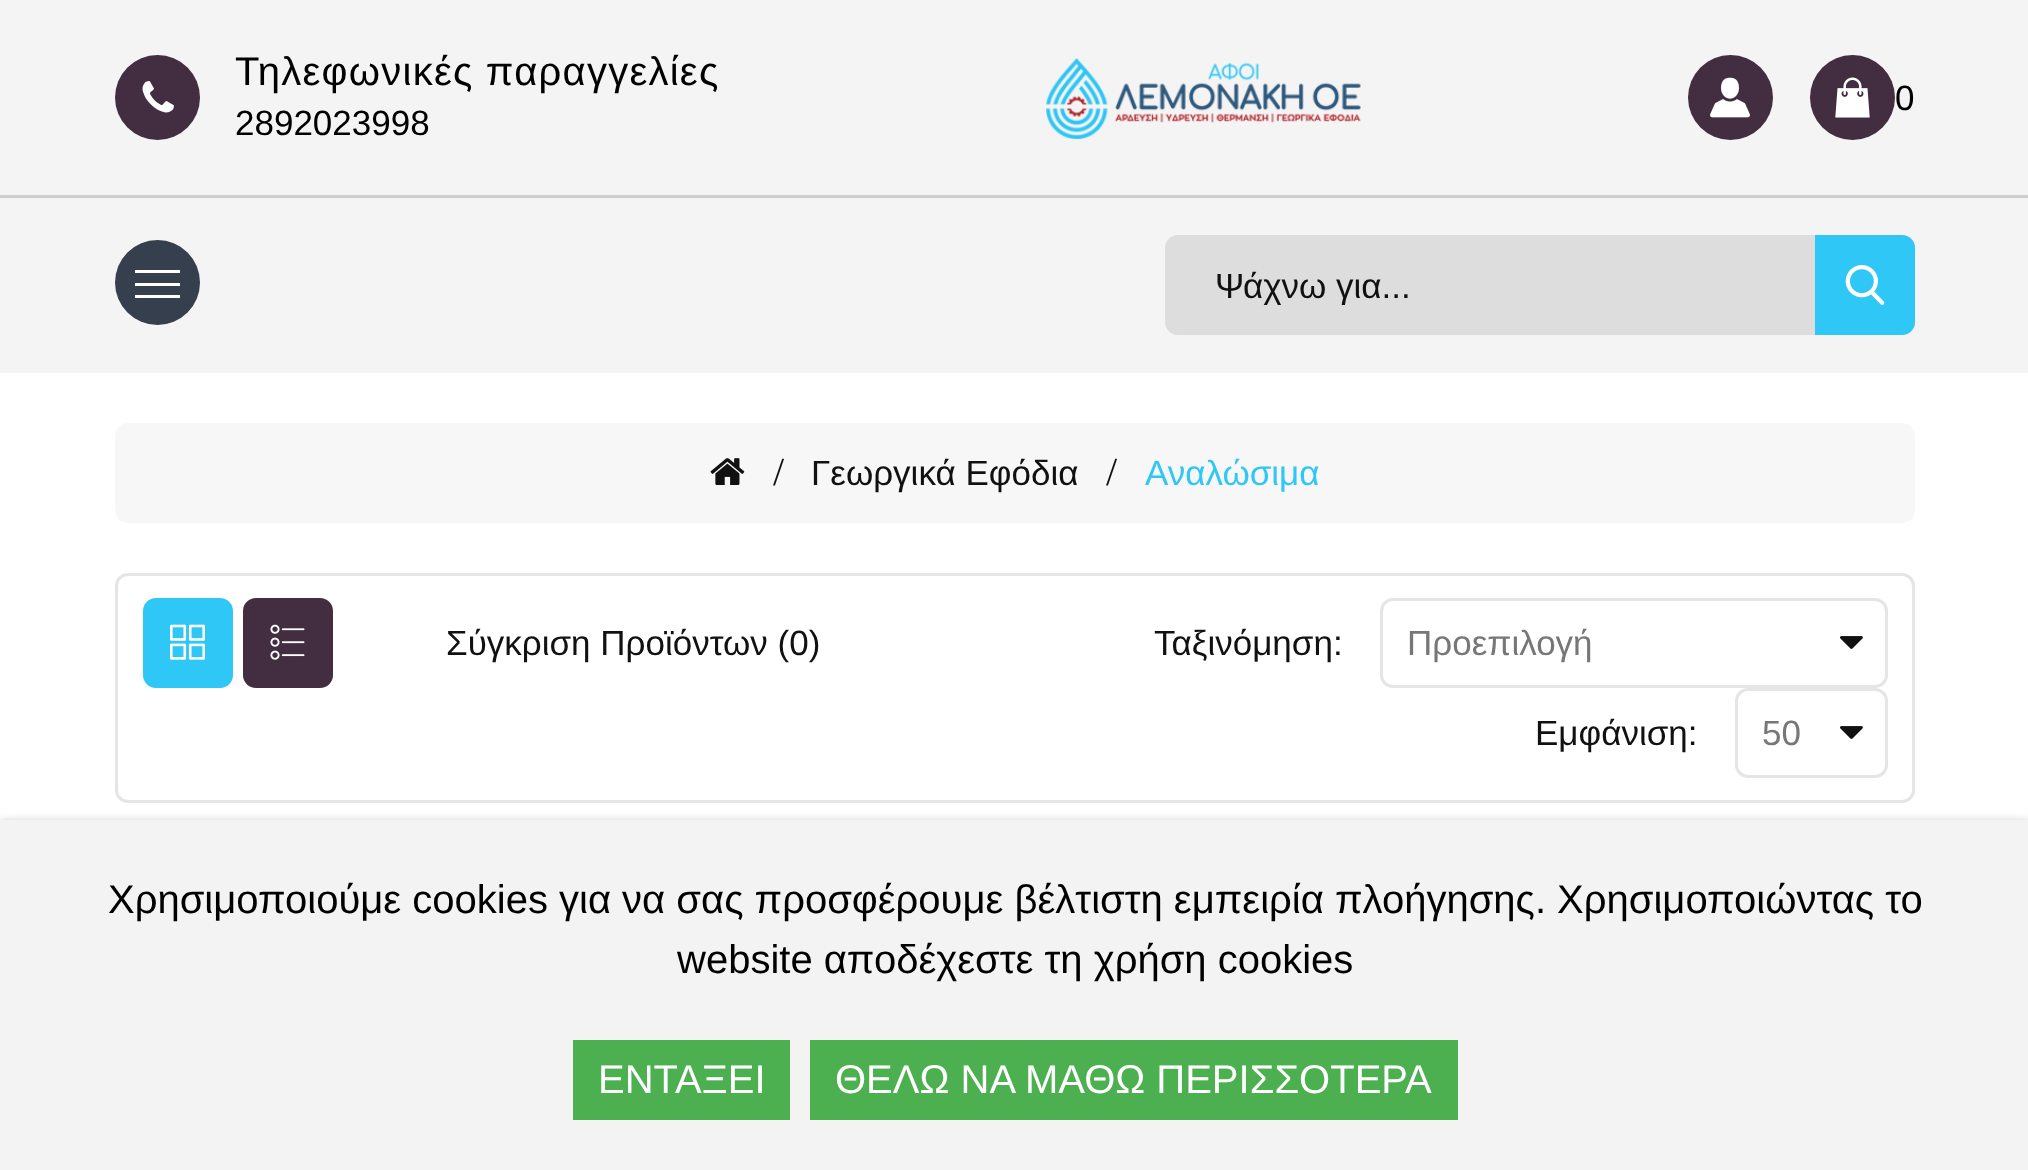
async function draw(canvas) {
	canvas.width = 2028;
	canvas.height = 1170;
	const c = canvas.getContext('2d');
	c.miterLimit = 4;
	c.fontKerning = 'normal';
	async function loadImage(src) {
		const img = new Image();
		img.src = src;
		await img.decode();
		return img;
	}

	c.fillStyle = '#fff';
	c.fillRect(0, 0, 2028, 1170);
	c.fillStyle = '#f4f4f4';
	c.fillRect(0, 0, 2028, 373);
	c.fillStyle = '#432e41';
	c.beginPath();
	c.arc(157.5, 97.5, 42.5, 0, 2 * Math.PI);
	c.fill();
	c.drawImage(await loadImage('img1.png'), 142, 81, 32, 32);
	c.letterSpacing = '1.25px';
	c.font = '40px Liberation Sans';
	c.fillStyle = '#000';
	c.fillText('Τηλεφωνικές παραγγελίες', 235, 85);
	c.letterSpacing = '0px';
	c.font = '35px Liberation Sans';
	c.fillText('2892023998', 235, 135);
	c.drawImage(await loadImage('img2.png'), 1046, 58, 315, 81);
	c.fillStyle = '#432e41';
	c.beginPath();
	c.arc(1730.5, 97.5, 42.5, 0, 2 * Math.PI);
	c.fill();
	c.drawImage(await loadImage('img3.png'), 1710, 77, 40, 41);
	c.beginPath();
	c.arc(1852.5, 97.5, 42.5, 0, 2 * Math.PI);
	c.fill();
	c.drawImage(await loadImage('img4.png'), 1835, 77, 35, 41);
	c.fillStyle = '#000';
	c.fillText('0', 1895, 110);
	c.fillStyle = '#cfcece';
	c.fillRect(0, 195, 2028, 3);
	c.fillStyle = '#353f4e';
	c.beginPath();
	c.arc(157.5, 282.5, 42.5, 0, 2 * Math.PI);
	c.fill();
	for (const [x, y, w, h, color] of [
		[135, 283, 45, 3, '#fff'],
		[135, 270, 45, 3, '#fff'],
		[135, 295, 45, 3, '#fff'],
	]) {
		c.fillStyle = color;
		c.fillRect(x, y, w, h);
	}
	c.fillStyle = '#ddd';
	c.beginPath();
	c.roundRect(1165, 235, 750, 100, 13);
	c.fill();
	c.save();
	c.beginPath();
	c.rect(1215, 265, 553, 40);
	c.clip();
	c.fillStyle = '#111';
	c.fillText('Ψάχνω για...', 1215, 298);
	c.restore();
	c.fillStyle = '#2fc7f6';
	c.beginPath();
	c.roundRect(1815, 235, 100, 100, [0, 13, 13, 0]);
	c.fill();
	c.drawImage(await loadImage('img5.png'), 1845, 265, 40, 40);
	c.fillStyle = '#f7f7f7';
	c.beginPath();
	c.roundRect(115, 423, 1800, 100, 13);
	c.fill();
	c.drawImage(await loadImage('img6.png'), 710, 458, 35, 27);
	c.font = '40px Liberation Serif';
	c.fillStyle = '#111';
	c.fillText('/', 773, 485);
	c.font = '35px Liberation Sans';
	c.fillText('Γεωργικά Εφόδια', 811, 485);
	c.font = '40px Liberation Serif';
	c.fillText('/', 1106, 485);
	c.font = '35px Liberation Sans';
	c.fillStyle = '#2fc7f6';
	c.fillText('Αναλώσιμα', 1145, 485);
	c.beginPath();
	c.roundRect(116.5, 574.5, 1797, 227, 11.5);
	c.strokeStyle = '#e5e5e5';
	c.lineWidth = 3;
	c.stroke();
	c.beginPath();
	c.roundRect(143, 598, 90, 90, 13);
	c.fill();
	c.drawImage(await loadImage('img7.png'), 170, 624, 35, 36);
	c.fillStyle = '#432e41';
	c.beginPath();
	c.roundRect(243, 598, 90, 90, 13);
	c.fill();
	c.drawImage(await loadImage('img8.png'), 270, 624, 35, 36);
	c.fillStyle = '#111';
	c.fillText('Σύγκριση Προϊόντων (0)', 446, 655);
	c.fillText('Ταξινόμηση:', 1154, 655);
	c.beginPath();
	c.roundRect(1381.5, 599.5, 505, 87, 11.5);
	c.stroke();
	c.fillStyle = '#777';
	c.fillText('Προεπιλογή', 1407, 655);
	c.drawImage(await loadImage('img9.png'), 1840, 636, 23, 13);
	c.fillStyle = '#111';
	c.fillText('Εμφάνιση:', 1535, 745);
	c.beginPath();
	c.roundRect(1736.5, 689.5, 150, 87, 11.5);
	c.stroke();
	c.fillStyle = '#777';
	c.fillText('50', 1762, 745);
	c.drawImage(await loadImage('img9.png'), 1840, 726, 23, 13);
	c.fillStyle = '#808080';
	c.filter = 'blur(6px)';
	c.beginPath();
	c.rect(0, 825, 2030, 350);
	c.fill();
	c.filter = 'none';
	c.fillStyle = '#f3f3f3';
	c.fillRect(0, 820, 2028, 350);
	c.font = '40px Liberation Sans';
	c.fillStyle = '#000';
	c.fillText('Χρησιμοποιούμε cookies για να σας προσφέρουμε βέλτιστη εμπειρία πλοήγησης. Χρησιμοποιώντας το', 108, 913);
	c.fillText('website αποδέχεστε τη χρήση cookies', 677, 973);
	c.fillStyle = '#4caf50';
	c.fillRect(573, 1040, 217, 80);
	c.fillStyle = '#fff';
	c.fillText('ΕΝΤΑΞΕΙ', 598, 1093);
	c.fillStyle = '#4caf50';
	c.fillRect(810, 1040, 648, 80);
	c.fillStyle = '#fff';
	c.fillText('ΘΕΛΩ ΝΑ ΜΑΘΩ ΠΕΡΙΣΣΟΤΕΡΑ', 835, 1093);
}

draw(document.querySelector('canvas'));
